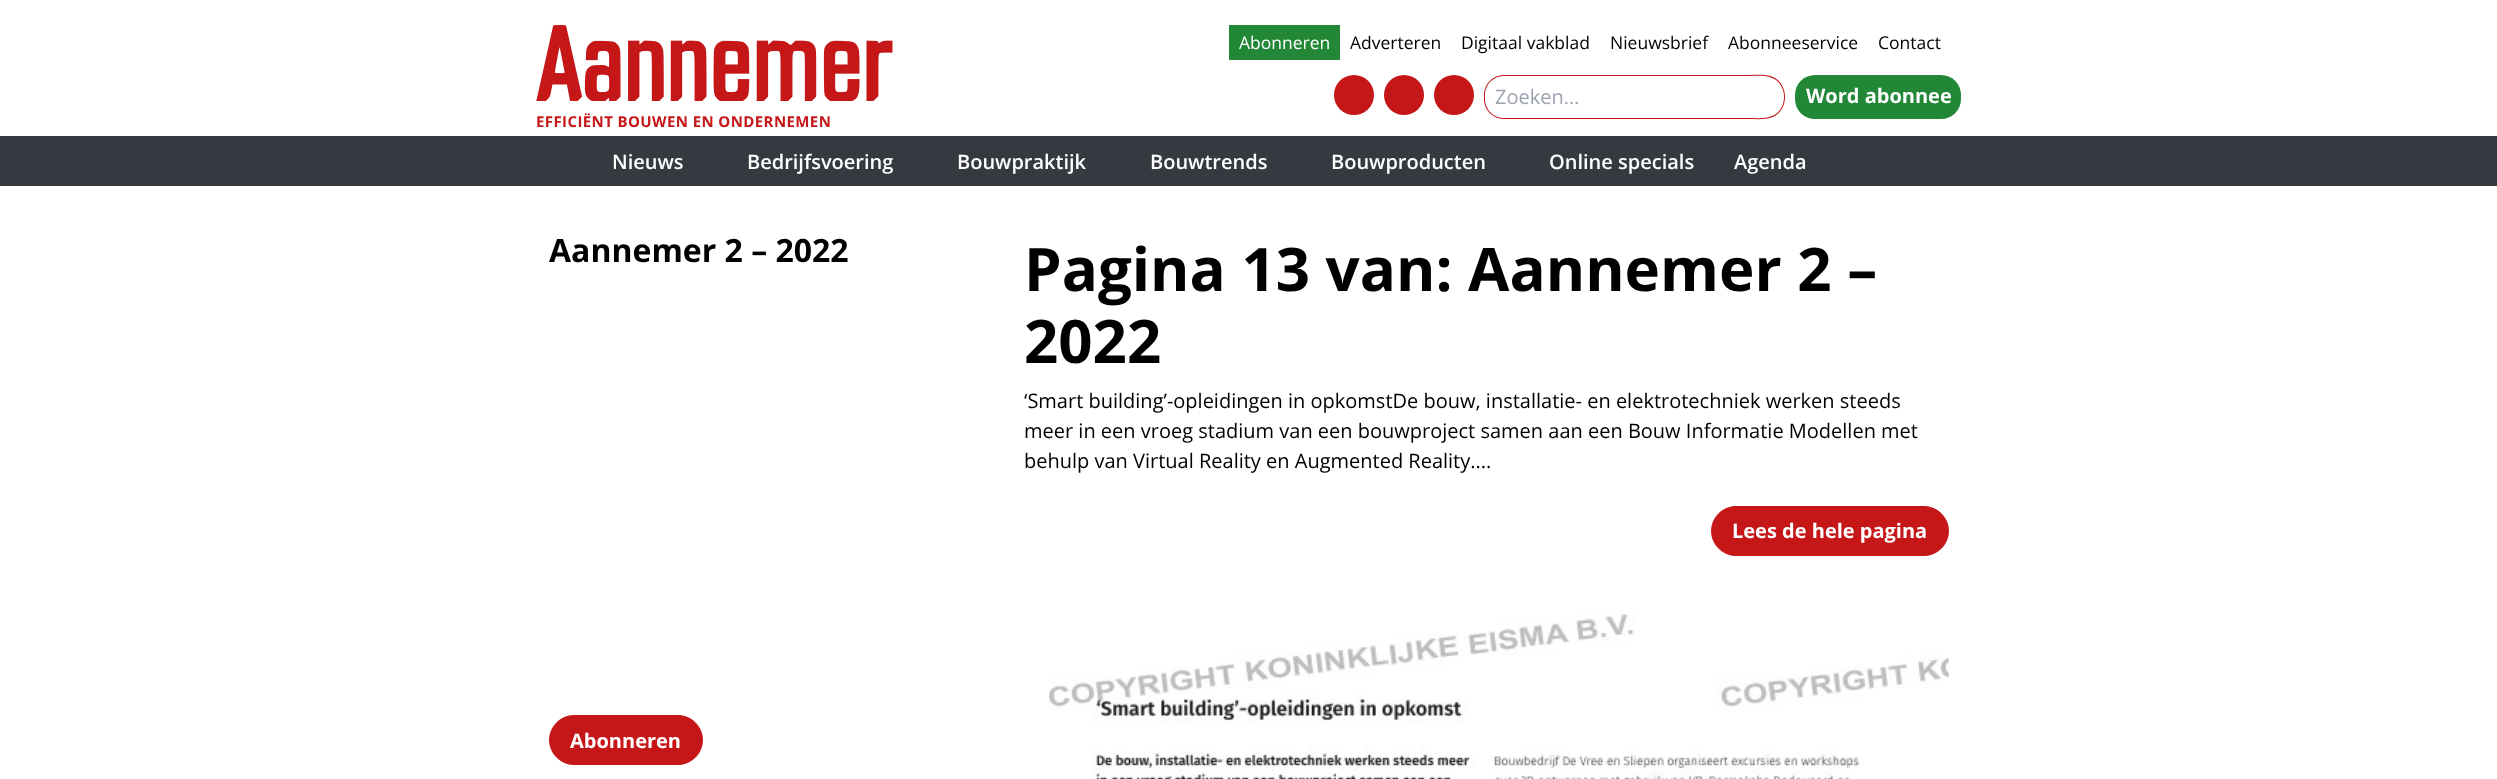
async function draw(canvas) {
	canvas.width = 2497;
	canvas.height = 779;
	const c = canvas.getContext('2d');
	c.miterLimit = 4;
	c.fontKerning = 'normal';
	async function loadImage(src) {
		const img = new Image();
		img.src = src;
		await img.decode();
		return img;
	}

	c.fillStyle = '#fff';
	c.fillRect(0, 0, 2497, 779);
	c.fillStyle = '#228736';
	c.fillRect(1229, 25, 111, 35);
	c.font = '17.5px Open Sans';
	c.fillStyle = '#fff';
	c.fillText('Abonneren', 1239, 49);
	c.fillStyle = '#000';
	for (const [text, x, y] of [
		['Adverteren', 1350, 49],
		['Digitaal vakblad', 1461, 49],
		['Nieuwsbrief', 1610, 49],
		['Abonneeservice', 1728, 49],
		['Contact', 1878, 49],
	]) {
		c.fillText(text, x, y);
	}
	c.fillStyle = '#c51618';
	c.beginPath();
	c.arc(1354, 95, 20, 0, 2 * Math.PI);
	c.fill();
	c.beginPath();
	c.arc(1404, 95, 20, 0, 2 * Math.PI);
	c.fill();
	c.beginPath();
	c.arc(1454, 95, 20, 0, 2 * Math.PI);
	c.fill();
	c.beginPath();
	c.moveTo(1504, 75);
	c.lineTo(1749, 75);
	c.lineTo(1749, 119);
	c.lineTo(1504, 119);
	c.bezierCurveTo(1493, 119, 1484, 110, 1484, 99);
	c.lineTo(1484, 95);
	c.bezierCurveTo(1484, 84, 1493, 75, 1504, 75);
	c.closePath();
	c.moveTo(1504, 76);
	c.lineTo(1749, 76);
	c.lineTo(1749, 118);
	c.lineTo(1504, 118);
	c.bezierCurveTo(1493, 118, 1485, 109, 1485, 99);
	c.lineTo(1485, 95);
	c.bezierCurveTo(1485, 85, 1493, 76, 1504, 76);
	c.closePath();
	c.fill('evenodd');
	c.font = '20px Open Sans';
	c.fillStyle = '#9ca3af';
	c.fillText('Zoeken…', 1495, 104);
	c.fillStyle = '#c51618';
	c.beginPath();
	c.moveTo(1749, 75);
	c.bezierCurveTo(1756, 75, 1766, 74, 1773, 77);
	c.bezierCurveTo(1789, 84, 1789, 110, 1773, 117);
	c.bezierCurveTo(1766, 120, 1756, 119, 1749, 119);
	c.closePath();
	c.moveTo(1749, 76);
	c.bezierCurveTo(1756, 76, 1766, 75, 1772, 78);
	c.bezierCurveTo(1788, 84, 1788, 110, 1772, 116);
	c.bezierCurveTo(1766, 119, 1756, 118, 1749, 118);
	c.closePath();
	c.fill('evenodd');
	c.fillStyle = '#228736';
	c.beginPath();
	c.roundRect(1795, 75, 166, 44, 20);
	c.fill();
	c.font = 'bold 20px Open Sans';
	c.fillStyle = '#fff';
	c.fillText('Word abonnee', 1806, 103);
	c.drawImage(await loadImage('img1.png'), 536, 25, 357, 76);
	c.letterSpacing = '0.4px';
	c.font = 'bold 15px Open Sans';
	c.fillStyle = '#c51618';
	c.fillText('EFFICIËNT BOUWEN EN ONDERNEMEN', 536, 127);
	c.fillStyle = '#343a40';
	c.fillRect(0, 136, 2497, 50);
	c.letterSpacing = '0px';
	c.font = '600 20px Open Sans';
	c.fillStyle = '#fff';
	for (const [text, x, y] of [
		['Nieuws', 612, 169],
		['Bedrijfsvoering', 747, 169],
		['Bouwpraktijk', 957, 169],
		['Bouwtrends', 1150, 169],
		['Bouwproducten', 1331, 169],
		['Online specials', 1549, 169],
		['Agenda', 1734, 169],
	]) {
		c.fillText(text, x, y);
	}
	c.font = 'bold 32px Open Sans';
	c.fillStyle = '#000';
	c.fillText('Aannemer 2 – 2022', 549, 262);
	c.fillStyle = '#c51618';
	c.beginPath();
	c.roundRect(549.5, 715.5, 153, 49, 24.5);
	c.fill();
	c.strokeStyle = '#c51618';
	c.stroke();
	c.font = 'bold 20px Open Sans';
	c.fillStyle = '#fff';
	c.fillText('Abonneren', 570, 748);
	c.font = 'bold 60px Open Sans';
	c.fillStyle = '#000';
	c.fillText('Pagina 13 van: Aannemer 2 –', 1024, 291);
	c.fillText('2022', 1024, 363);
	c.font = '20px Open Sans';
	for (const [text, x, y] of [
		['‘Smart building’-opleidingen in opkomstDe bouw, installatie- en elektrotechniek werken steeds', 1024, 408],
		['meer in een vroeg stadium van een bouwproject samen aan een Bouw Informatie Modellen met', 1024, 438],
		['behulp van Virtual Reality en Augmented Reality....', 1024, 468],
	]) {
		c.fillText(text, x, y);
	}
	c.fillStyle = '#c51618';
	c.beginPath();
	c.roundRect(1711.5, 506.5, 237, 49, 24.5);
	c.fill();
	c.stroke();
	c.font = 'bold 20px Open Sans';
	c.fillStyle = '#fff';
	c.fillText('Lees de hele pagina', 1732, 538);
	c.drawImage(await loadImage('img2.png'), 1048, 612, 901, 167);
}

draw(document.querySelector('canvas'));
